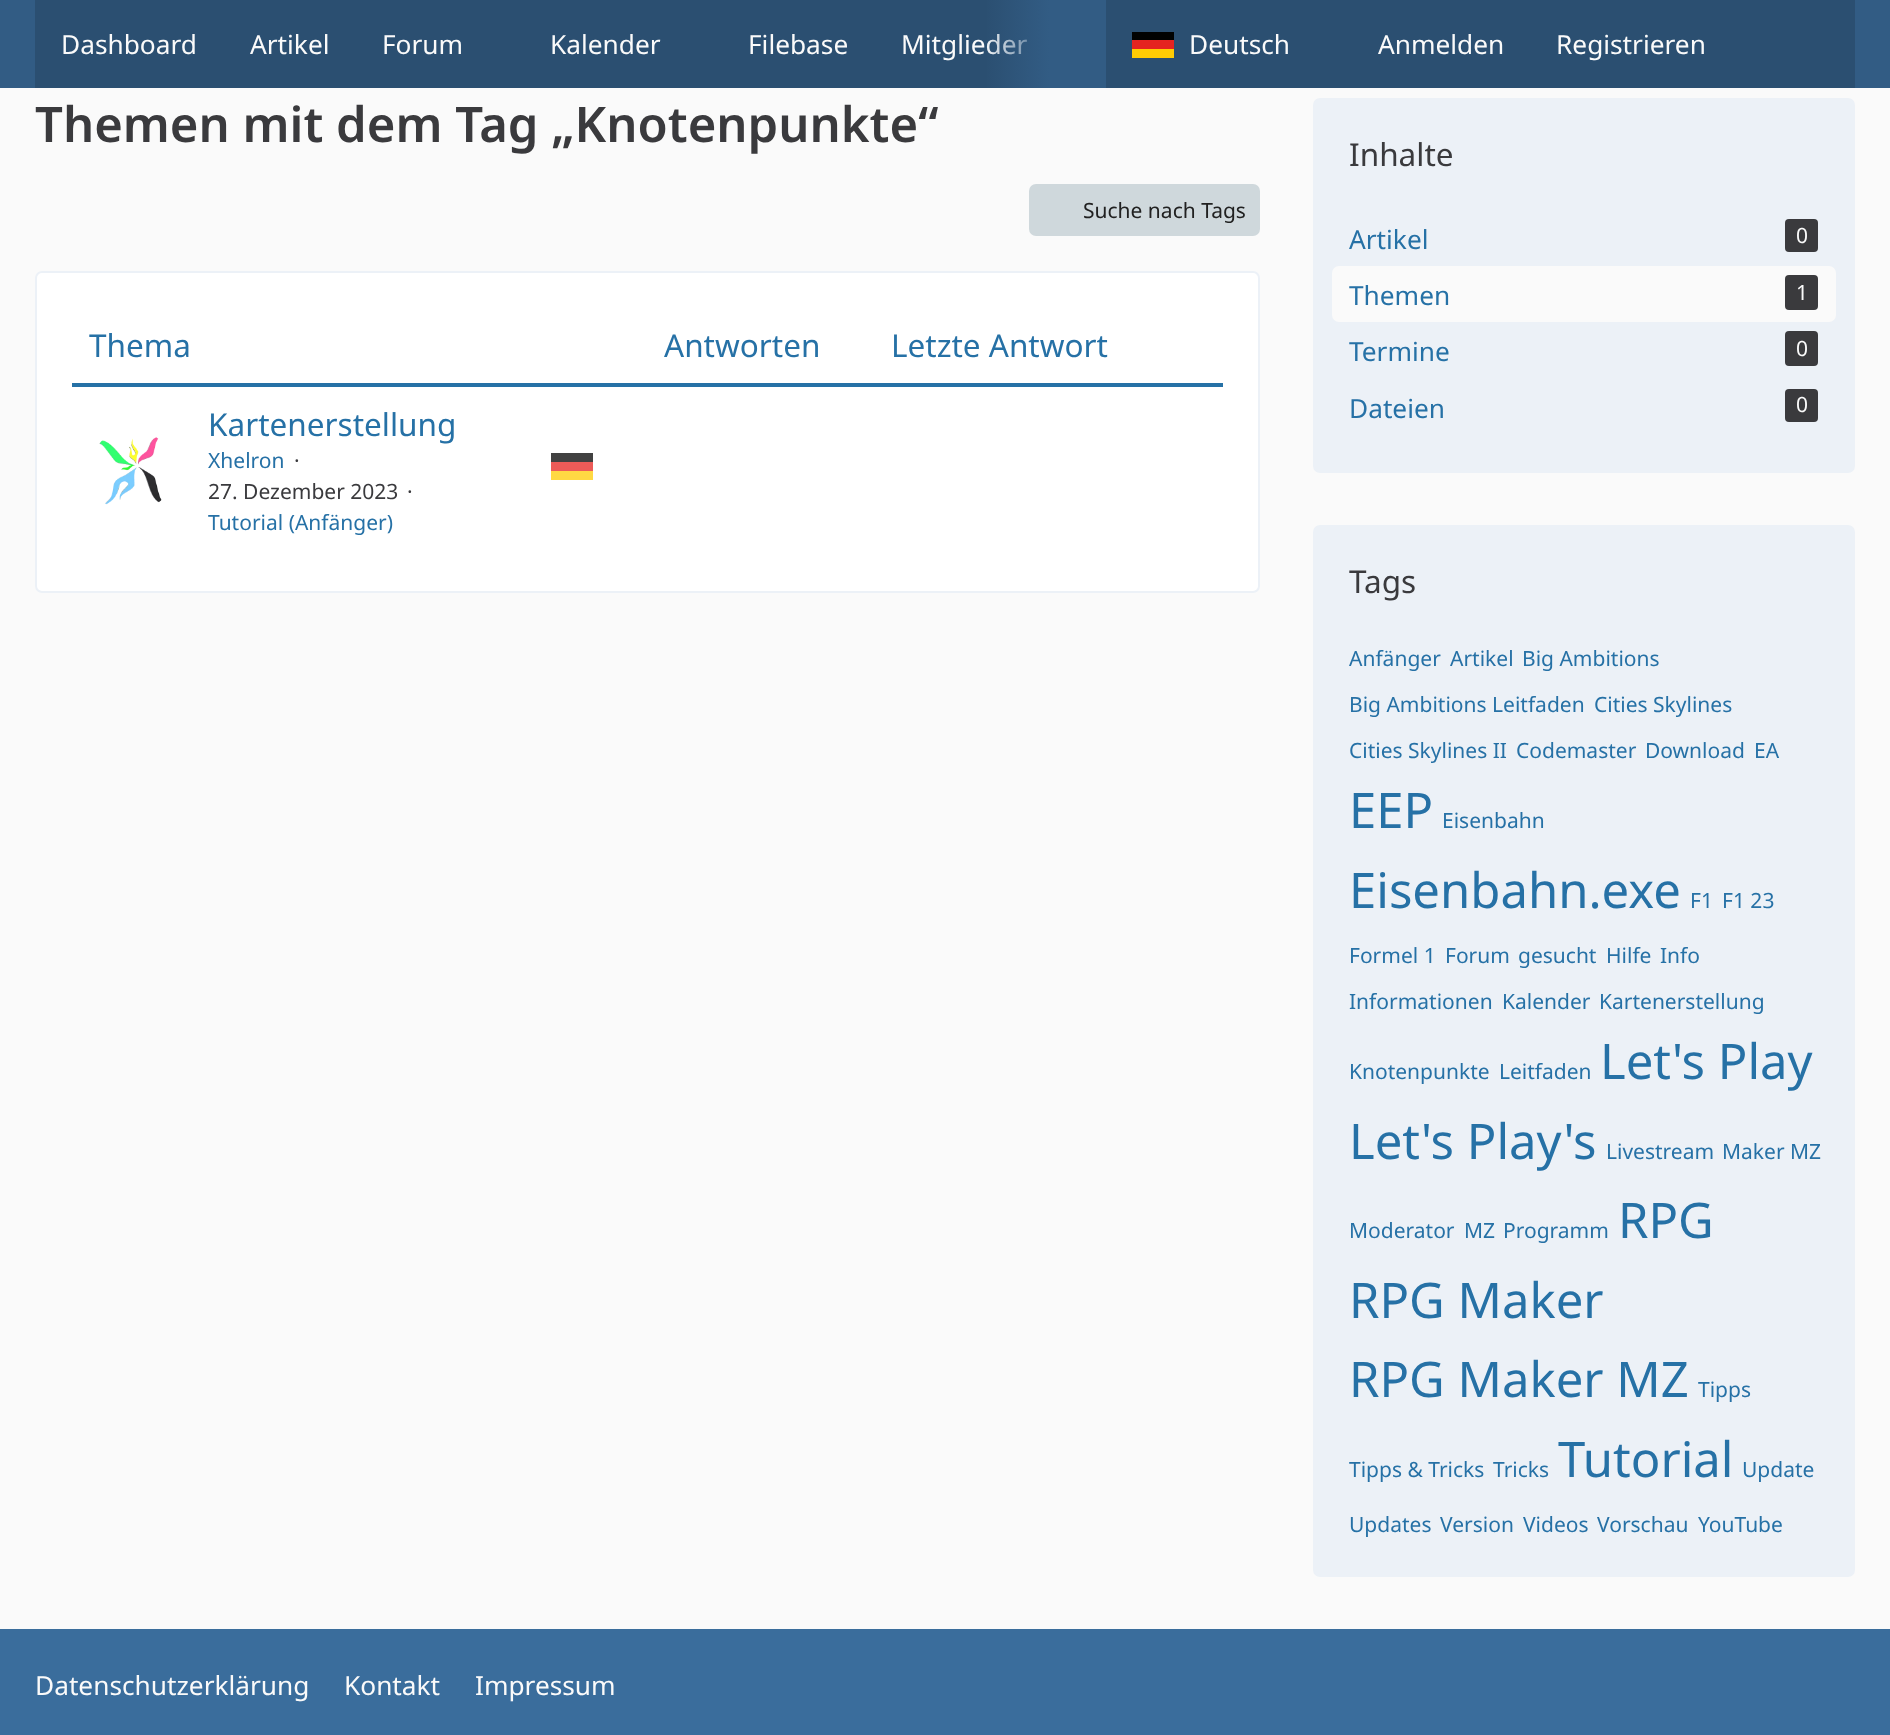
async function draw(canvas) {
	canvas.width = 1890;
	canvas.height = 1735;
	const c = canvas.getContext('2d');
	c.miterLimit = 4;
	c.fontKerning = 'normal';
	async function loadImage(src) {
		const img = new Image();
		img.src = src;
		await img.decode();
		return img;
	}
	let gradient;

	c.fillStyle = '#fafafa';
	c.fillRect(0, 0, 1890, 1735);
	c.fillStyle = '#325c84';
	c.fillRect(0, 0, 1890, 88);
	c.fillStyle = '#2b4f71';
	c.fillRect(35, 0, 1014, 88);
	c.font = '26.25px Noto Sans';
	c.fillStyle = '#fafafa';
	c.fillText('Mitglieder', 901, 54);
	gradient = c.createLinearGradient(984, 44, 1071, 44);
	gradient.addColorStop(0, '#325c8400');
	gradient.addColorStop(0.75, '#325c84');
	c.fillStyle = gradient;
	c.fillRect(987, 0, 62, 88);
	c.fillStyle = '#fafafa';
	for (const [text, x, y] of [
		['Dashboard', 61, 54],
		['Artikel', 250, 54],
		['Forum', 382, 54],
		['Kalender', 550, 54],
		['Filebase', 748, 54],
	]) {
		c.fillText(text, x, y);
	}
	for (const [x, y, w, h, color] of [
		[1106, 0, 749, 88, '#2b4f71'],
		[1132, 32, 42, 8, '#010202'],
		[1132, 49, 42, 9, '#ffcc04'],
		[1132, 40, 42, 9, '#e52420'],
	]) {
		c.fillStyle = color;
		c.fillRect(x, y, w, h);
	}
	c.fillStyle = '#fafafa';
	for (const [text, x, y] of [
		['Deutsch', 1189, 54],
		['Anmelden', 1378, 54],
		['Registrieren', 1556, 54],
	]) {
		c.fillText(text, x, y);
	}
	c.font = '600 49px Noto Sans';
	c.fillStyle = '#3a3a3d';
	c.fillText('Themen mit dem Tag „Knotenpunkte“', 35, 142);
	c.fillStyle = '#cfd8dc';
	c.beginPath();
	c.roundRect(1029, 184, 231, 52, 7);
	c.fill();
	c.font = '21px Noto Sans';
	c.fillStyle = '#212121';
	c.fillText('Suche nach Tags', 1083, 218);
	c.fillStyle = '#fff';
	c.beginPath();
	c.roundRect(36, 272, 1223, 320, 6);
	c.fill();
	c.strokeStyle = '#ecf1f7';
	c.lineWidth = 2;
	c.stroke();
	c.fillStyle = '#2671a6';
	c.fillRect(72, 383, 1151, 4);
	c.font = '31.5px Noto Sans';
	for (const [text, x, y] of [
		['Thema', 89, 357],
		['Antworten', 664, 357],
		['Letzte Antwort', 891, 357],
	]) {
		c.fillText(text, x, y);
	}
	c.drawImage(await loadImage('img1.png'), 99, 437, 63, 68);
	c.fillText('Kartenerstellung', 208, 436);
	c.font = '21px Noto Sans';
	c.fillText('Xhelron', 208, 468);
	c.fillStyle = '#3a3a3d';
	for (const [text, x, y] of [
		['·', 294, 468],
		['27. Dezember 2023', 208, 499],
		['·', 407, 499],
	]) {
		c.fillText(text, x, y);
	}
	c.fillStyle = '#2671a6';
	c.fillText('Tutorial (Anfänger)', 208, 530);
	for (const [x, y, w, h, color] of [
		[551, 453, 42, 9, '#414141'],
		[551, 462, 42, 9, '#ec5b58'],
		[551, 471, 42, 9, '#ffd943'],
	]) {
		c.fillStyle = color;
		c.fillRect(x, y, w, h);
	}
	c.fillStyle = '#ecf1f7';
	c.beginPath();
	c.roundRect(1313, 98, 542, 375, 7);
	c.fill();
	c.font = '31.5px Noto Sans';
	c.fillStyle = '#3a3a3d';
	c.fillText('Inhalte', 1349, 166);
	c.font = '26.25px Noto Sans';
	c.fillStyle = '#2671a6';
	c.fillText('Artikel', 1349, 249);
	c.fillStyle = '#3a3a3d';
	c.beginPath();
	c.roundRect(1785, 219, 33, 33, 4);
	c.fill();
	c.font = '21px Noto Sans';
	c.fillStyle = '#fafafa';
	c.fillText('0', 1796, 243);
	c.beginPath();
	c.roundRect(1332, 266, 504, 56, 7);
	c.fill();
	c.font = '26.25px Noto Sans';
	c.fillStyle = '#2671a6';
	c.fillText('Themen', 1349, 305);
	c.fillStyle = '#3a3a3d';
	c.beginPath();
	c.roundRect(1785, 275, 33, 35, 4);
	c.fill();
	c.font = '21px Noto Sans';
	c.fillStyle = '#fafafa';
	c.fillText('1', 1796, 300);
	c.font = '26.25px Noto Sans';
	c.fillStyle = '#2671a6';
	c.fillText('Termine', 1349, 361);
	c.fillStyle = '#3a3a3d';
	c.beginPath();
	c.roundRect(1785, 331, 33, 35, 4);
	c.fill();
	c.font = '21px Noto Sans';
	c.fillStyle = '#fafafa';
	c.fillText('0', 1796, 356);
	c.font = '26.25px Noto Sans';
	c.fillStyle = '#2671a6';
	c.fillText('Dateien', 1349, 418);
	c.fillStyle = '#3a3a3d';
	c.beginPath();
	c.roundRect(1785, 389, 33, 33, 4);
	c.fill();
	c.font = '21px Noto Sans';
	c.fillStyle = '#fafafa';
	c.fillText('0', 1796, 412);
	c.fillStyle = '#ecf1f7';
	c.beginPath();
	c.roundRect(1313, 525, 542, 1052, 7);
	c.fill();
	c.font = '31.5px Noto Sans';
	c.fillStyle = '#3a3a3d';
	c.fillText('Tags', 1349, 593);
	c.font = '21px Noto Sans';
	c.fillStyle = '#2671a6';
	for (const [text, x, y] of [
		['Anfänger', 1349, 666],
		['Artikel', 1450, 666],
		['Big Ambitions', 1522, 666],
		['Big Ambitions Leitfaden', 1349, 712],
		['Cities Skylines', 1594, 712],
		['Cities Skylines II', 1349, 758],
		['Codemaster', 1516, 758],
		['Download', 1645, 758],
		['EA', 1754, 758],
	]) {
		c.fillText(text, x, y);
	}
	c.font = '49px Noto Sans';
	c.fillText('EEP', 1349, 828);
	c.font = '21px Noto Sans';
	c.fillText('Eisenbahn', 1442, 828);
	c.font = '49px Noto Sans';
	c.fillText('Eisenbahn.exe', 1349, 908);
	c.font = '21px Noto Sans';
	for (const [text, x, y] of [
		['F1', 1690, 908],
		['F1 23', 1722, 908],
		['Formel 1', 1349, 963],
		['Forum', 1445, 963],
		['gesucht', 1518, 963],
		['Hilfe', 1606, 963],
		['Info', 1660, 963],
		['Informationen', 1349, 1009],
		['Kalender', 1502, 1009],
		['Kartenerstellung', 1599, 1009],
		['Knotenpunkte', 1349, 1079],
		['Leitfaden', 1499, 1079],
	]) {
		c.fillText(text, x, y);
	}
	c.font = '49px Noto Sans';
	c.fillText('Let\'s Play', 1600, 1079);
	c.fillText('Let\'s Play\'s', 1349, 1159);
	c.font = '21px Noto Sans';
	for (const [text, x, y] of [
		['Livestream', 1606, 1159],
		['Maker MZ', 1722, 1159],
		['Moderator', 1349, 1238],
		['MZ', 1464, 1238],
		['Programm', 1503, 1238],
	]) {
		c.fillText(text, x, y);
	}
	c.font = '49px Noto Sans';
	for (const [text, x, y] of [
		['RPG', 1618, 1238],
		['RPG Maker', 1349, 1318],
		['RPG Maker MZ', 1349, 1397],
	]) {
		c.fillText(text, x, y);
	}
	c.font = '21px Noto Sans';
	for (const [text, x, y] of [
		['Tipps', 1698, 1397],
		['Tipps & Tricks', 1349, 1477],
		['Tricks', 1493, 1477],
	]) {
		c.fillText(text, x, y);
	}
	c.font = '49px Noto Sans';
	c.fillText('Tutorial', 1558, 1477);
	c.font = '21px Noto Sans';
	for (const [text, x, y] of [
		['Update', 1742, 1477],
		['Updates', 1349, 1532],
		['Version', 1440, 1532],
		['Videos', 1523, 1532],
		['Vorschau', 1597, 1532],
		['YouTube', 1698, 1532],
	]) {
		c.fillText(text, x, y);
	}
	c.fillStyle = '#3a6d9c';
	c.fillRect(0, 1629, 1890, 106);
	c.font = '26.25px Noto Sans';
	c.fillStyle = '#fafafa';
	for (const [text, x, y] of [
		['Datenschutzerklärung', 35, 1695],
		['Kontakt', 344, 1695],
		['Impressum', 475, 1695],
	]) {
		c.fillText(text, x, y);
	}
}

draw(document.querySelector('canvas'));
